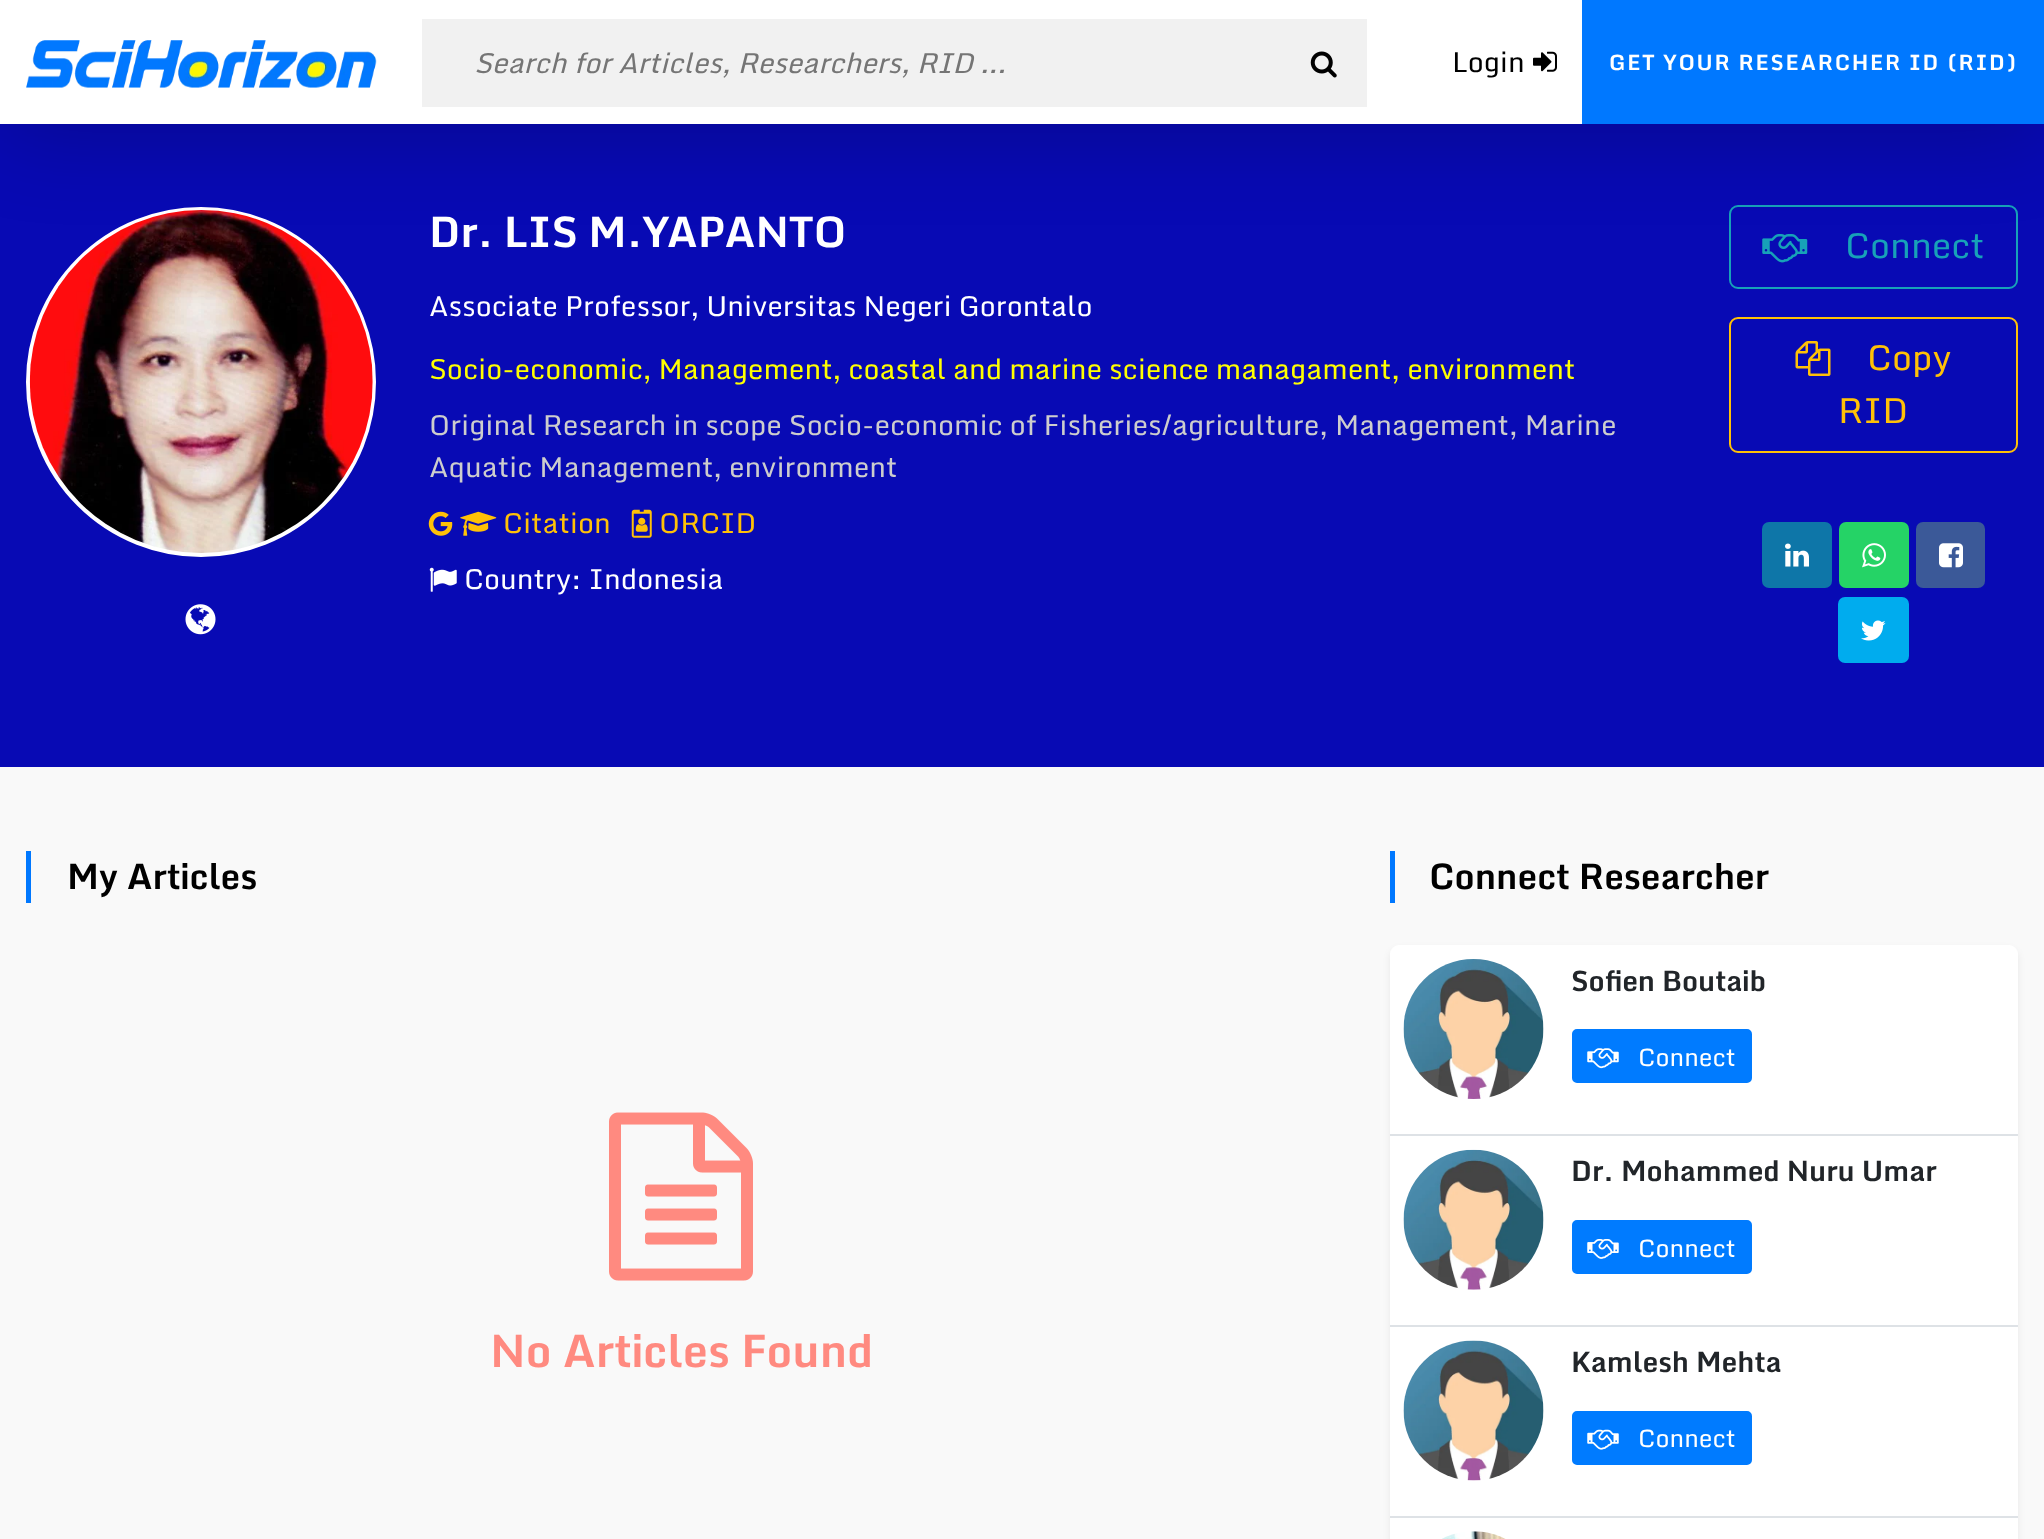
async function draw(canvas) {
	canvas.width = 2044;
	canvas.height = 1539;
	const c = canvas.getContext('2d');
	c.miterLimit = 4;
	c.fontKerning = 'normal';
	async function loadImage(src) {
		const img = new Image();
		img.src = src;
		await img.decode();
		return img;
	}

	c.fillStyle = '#f9f9f9';
	c.fillRect(0, 0, 2044, 1539);
	c.fillStyle = '#080ab4';
	c.fillRect(0, 124, 2044, 643);
	c.fillStyle = '#fff';
	c.beginPath();
	c.arc(201, 382, 173, 0, 2 * Math.PI);
	c.fill();
	c.strokeStyle = '#fff';
	c.lineWidth = 4;
	c.stroke();
	c.drawImage(await loadImage('img4.png'), 29, 210, 344, 343);
	c.beginPath();
	c.roundRect(1730, 206, 287, 82, 8);
	c.strokeStyle = '#17a2b8';
	c.lineWidth = 2;
	c.stroke();
	c.drawImage(await loadImage('img10.png'), 1762, 234, 46, 29);
	c.fillStyle = '#00000033';
	c.filter = 'blur(44px)';
	c.beginPath();
	c.rect(0, 9, 2044, 124);
	c.fill();
	c.filter = 'none';
	c.fillStyle = '#fff';
	c.fillRect(0, 0, 1582, 124);
	c.drawImage(await loadImage('img1.png'), 26, 40, 351, 48);
	c.fillStyle = '#f1f1f1';
	c.fillRect(422, 19, 945, 88);
	c.font = 'italic 28px Monda';
	c.fillStyle = '#757575';
	c.fillText('Search for Articles, Researchers, RID ...', 474, 73);
	c.drawImage(await loadImage('img2.png'), 1310, 51, 27, 27);
	c.font = '28px Monda';
	c.fillStyle = '#000';
	c.fillText('Login', 1452, 72);
	c.drawImage(await loadImage('img3.png'), 1533, 51, 24, 21);
	c.fillStyle = '#0078ff';
	c.fillRect(1582, 0, 462, 124);
	c.letterSpacing = '1.75px';
	c.font = 'bold 21px Monda';
	c.fillStyle = '#fff';
	c.fillText('GET YOUR RESEARCHER ID (RID)', 1609, 70);
	c.drawImage(await loadImage('img5.png'), 185, 604, 31, 31);
	c.letterSpacing = '0px';
	c.font = 'bold 42px Monda';
	c.fillText('Dr. LIS M.YAPANTO', 429, 247);
	c.font = '28px Monda';
	c.fillText('Associate Professor, Universitas Negeri Gorontalo', 429, 316);
	c.fillStyle = '#ff0';
	c.fillText('Socio-economic, Management, coastal and marine science managament, environment', 429, 379);
	c.fillStyle = '#cdcdcd';
	c.fillText('Original Research in scope Socio-economic of Fisheries/agriculture, Management, Marine', 429, 435);
	c.fillText('Aquatic Management, environment', 429, 477);
	c.drawImage(await loadImage('img6.png'), 428, 511, 25, 25);
	c.drawImage(await loadImage('img7.png'), 460, 511, 37, 25);
	c.fillStyle = '#ffc107';
	c.fillText('Citation', 503, 533);
	c.drawImage(await loadImage('img8.png'), 631, 509, 21, 29);
	c.fillText('ORCID', 659, 533);
	c.drawImage(await loadImage('img9.png'), 429, 567, 28, 25);
	c.fillStyle = '#fff';
	c.fillText('Country: Indonesia', 464, 589);
	c.font = '35px Monda';
	c.fillStyle = '#17a2b8';
	c.fillText('Connect', 1845, 258);
	c.beginPath();
	c.roundRect(1730, 318, 287, 134, 8);
	c.strokeStyle = '#ffc107';
	c.stroke();
	c.drawImage(await loadImage('img11.png'), 1795, 341, 36, 35);
	c.fillStyle = '#ffc107';
	c.fillText('Copy', 1867, 370);
	c.fillText('RID', 1838, 423);
	c.fillStyle = '#0e76a8';
	c.beginPath();
	c.roundRect(1762, 522, 70, 66, 7);
	c.fill();
	c.drawImage(await loadImage('img12.png'), 1785, 543, 24, 24);
	c.fillStyle = '#25d366';
	c.beginPath();
	c.roundRect(1839, 522, 70, 66, 7);
	c.fill();
	c.drawImage(await loadImage('img13.png'), 1862, 543, 24, 25);
	c.fillStyle = '#3b5998';
	c.beginPath();
	c.roundRect(1916, 522, 69, 66, 7);
	c.fill();
	c.drawImage(await loadImage('img14.png'), 1939, 543, 24, 25);
	c.fillStyle = '#00acee';
	c.beginPath();
	c.roundRect(1838, 597, 71, 66, 7);
	c.fill();
	c.drawImage(await loadImage('img15.png'), 1861, 620, 25, 21);
	c.fillStyle = '#0078ff';
	c.fillRect(26, 851, 5, 52);
	c.font = 'bold 35px Monda';
	c.fillStyle = '#000';
	c.fillText('My Articles', 67, 889);
	c.drawImage(await loadImage('img16.png'), 609, 1112, 144, 169);
	c.font = 'bold 44.75px Monda';
	c.fillStyle = '#ff8a80';
	c.fillText('No Articles Found', 490, 1367);
	c.fillStyle = '#0078ff';
	c.fillRect(1390, 851, 5, 52);
	c.font = 'bold 35px Monda';
	c.fillStyle = '#000';
	c.fillText('Connect Researcher', 1429, 889);
	c.fillStyle = '#00000012';
	c.filter = 'blur(3.5px)';
	c.beginPath();
	c.roundRect(1390, 949, 628, 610, 9);
	c.fill();
	c.filter = 'none';
	c.fillStyle = '#fff';
	c.beginPath();
	c.roundRect(1390, 945, 628, 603, 9);
	c.fill();
	c.fillStyle = '#dee2e6';
	c.fillRect(1390, 1134, 628, 2);
	c.drawImage(await loadImage('img17.png'), 1403, 959, 141, 140);
	c.font = 'bold 28px Monda';
	c.fillStyle = '#212529';
	c.fillText('Sofien Boutaib', 1571, 991);
	c.fillStyle = '#007bff';
	c.beginPath();
	c.roundRect(1573, 1030, 178, 52, 4);
	c.fill();
	c.strokeStyle = '#007bff';
	c.stroke();
	c.drawImage(await loadImage('img18.png'), 1587, 1048, 32, 21);
	c.font = '24.5px Monda';
	c.fillStyle = '#fff';
	c.fillText('Connect', 1638, 1066);
	c.fillStyle = '#dee2e6';
	c.fillRect(1390, 1325, 628, 2);
	c.drawImage(await loadImage('img19.png'), 1403, 1149, 141, 141);
	c.font = 'bold 28px Monda';
	c.fillStyle = '#212529';
	c.fillText('Dr. Mohammed Nuru Umar', 1571, 1181);
	c.fillStyle = '#007bff';
	c.beginPath();
	c.roundRect(1573, 1221, 178, 52, 4);
	c.fill();
	c.stroke();
	c.drawImage(await loadImage('img20.png'), 1587, 1239, 32, 20);
	c.font = '24.5px Monda';
	c.fillStyle = '#fff';
	c.fillText('Connect', 1638, 1257);
	c.fillStyle = '#dee2e6';
	c.fillRect(1390, 1516, 628, 2);
	c.drawImage(await loadImage('img21.png'), 1403, 1340, 141, 141);
	c.font = 'bold 28px Monda';
	c.fillStyle = '#212529';
	c.fillText('Kamlesh Mehta', 1571, 1372);
	c.fillStyle = '#007bff';
	c.beginPath();
	c.roundRect(1573, 1412, 178, 52, 4);
	c.fill();
	c.stroke();
	c.drawImage(await loadImage('img22.png'), 1587, 1429, 32, 21);
	c.font = '24.5px Monda';
	c.fillStyle = '#fff';
	c.fillText('Connect', 1638, 1447);
	c.drawImage(await loadImage('img23.png'), 1442, 1531, 64, 8);
}

draw(document.querySelector('canvas'));
